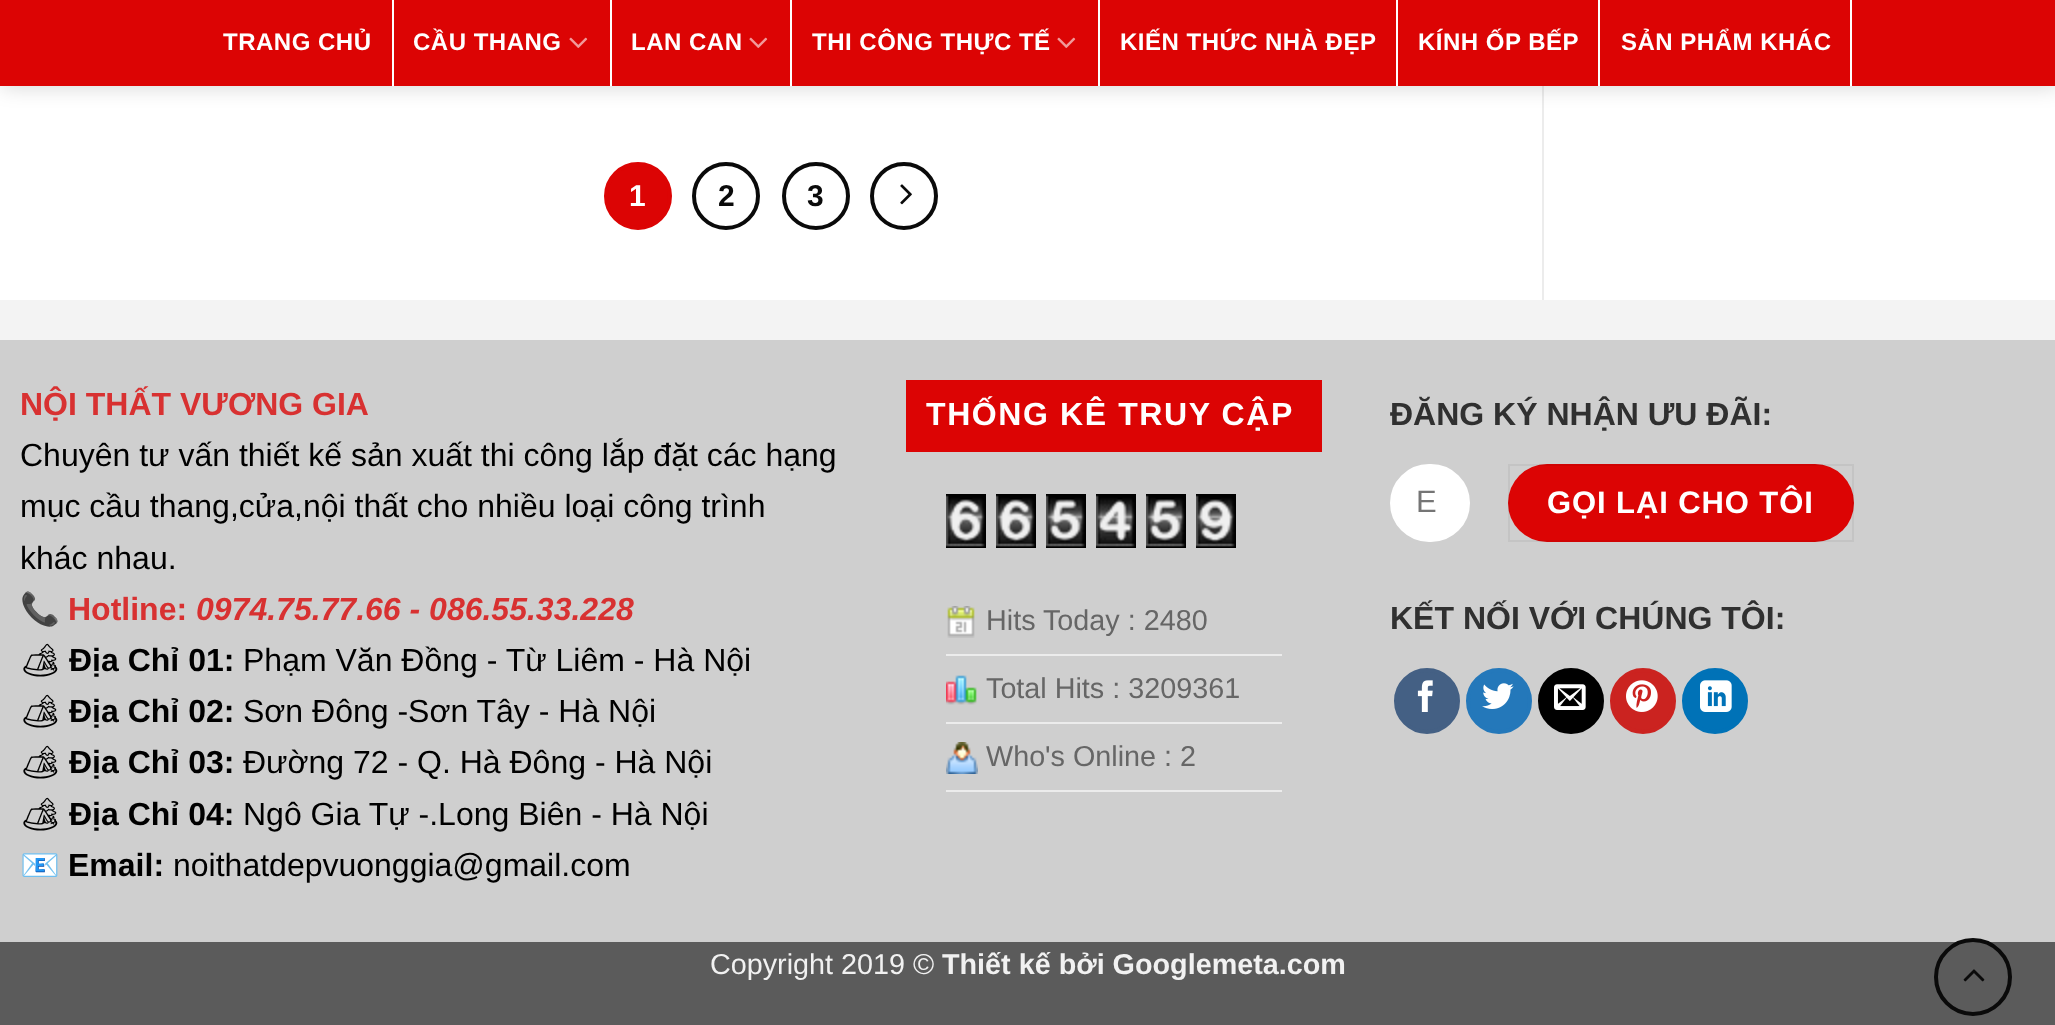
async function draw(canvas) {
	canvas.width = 2055;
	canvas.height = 1025;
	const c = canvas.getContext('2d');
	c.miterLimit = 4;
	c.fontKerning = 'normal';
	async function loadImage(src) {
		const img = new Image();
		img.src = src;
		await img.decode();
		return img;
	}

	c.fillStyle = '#f3f3f3';
	c.fillRect(0, 0, 2055, 1025);
	for (const [x, y, w, h, color] of [
		[0, 86, 1542, 214, '#fff'],
		[1544, 86, 511, 214, '#fff'],
		[1542, 86, 2, 214, '#ececec'],
	]) {
		c.fillStyle = color;
		c.fillRect(x, y, w, h);
	}
	c.fillStyle = '#00000026';
	c.filter = 'blur(10px)';
	c.beginPath();
	c.rect(2, 2, 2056, 86);
	c.fill();
	c.filter = 'none';
	c.fillStyle = '#dc0404';
	c.fillRect(0, 0, 2055, 86);
	c.fillStyle = '#fff';
	c.fillRect(392, 0, 2, 86);
	c.letterSpacing = '0.5px';
	c.font = 'bold 24px Liberation Sans';
	c.fillText('TRANG CHỦ', 223, 50);
	c.fillRect(610, 0, 2, 86);
	c.fillText('CẦU THANG', 413, 50);
	c.drawImage(await loadImage('img1.png'), 569, 37, 19, 11);
	c.fillRect(790, 0, 2, 86);
	c.fillText('LAN CAN', 631, 50);
	c.drawImage(await loadImage('img1.png'), 749, 37, 19, 11);
	c.fillRect(1098, 0, 2, 86);
	c.fillText('THI CÔNG THỰC TẾ', 812, 50);
	c.drawImage(await loadImage('img1.png'), 1057, 37, 19, 11);
	c.fillRect(1396, 0, 2, 86);
	c.fillText('KIẾN THỨC NHÀ ĐẸP', 1120, 50);
	c.fillRect(1598, 0, 2, 86);
	c.fillText('KÍNH ỐP BẾP', 1418, 50);
	c.fillRect(1850, 0, 2, 86);
	c.fillText('SẢN PHẨM KHÁC', 1621, 50);
	c.fillStyle = '#dc0404';
	c.beginPath();
	c.arc(638, 196, 32, 0, 2 * Math.PI);
	c.fill();
	c.strokeStyle = '#dc0404';
	c.lineWidth = 4;
	c.stroke();
	c.letterSpacing = '0px';
	c.font = 'bold 30px Liberation Sans';
	c.fillStyle = '#fff';
	c.fillText('1', 629, 206);
	c.beginPath();
	c.arc(726, 196, 32, 0, 2 * Math.PI);
	c.strokeStyle = '#0a0a0a';
	c.stroke();
	c.fillStyle = '#0a0a0a';
	c.fillText('2', 718, 206);
	c.beginPath();
	c.arc(816, 196, 32, 0, 2 * Math.PI);
	c.stroke();
	c.fillText('3', 807, 206);
	c.beginPath();
	c.arc(904, 196, 32, 0, 2 * Math.PI);
	c.stroke();
	c.drawImage(await loadImage('img2.png'), 900, 184, 12, 21);
	c.fillStyle = '#cfcfcf';
	c.fillRect(0, 340, 2055, 602);
	c.font = 'bold 32px Liberation Sans';
	c.fillStyle = '#d83131';
	c.fillText('NỘI THẤT VƯƠNG GIA', 20, 415);
	c.font = '32px Liberation Sans';
	c.fillStyle = '#000';
	for (const [text, x, y] of [
		['Chuyên tư vấn thiết kế sản xuất thi công lắp đặt các hạng', 20, 466],
		['mục cầu thang,cửa,nội thất cho nhiều loại công trình', 20, 517],
		['khác nhau.', 20, 569],
	]) {
		c.fillText(text, x, y);
	}
	c.font = 'bold 32px Noto Color Emoji';
	c.fillStyle = '#d83131';
	c.fillText('📞', 20, 620);
	c.font = 'bold 32px Liberation Sans';
	c.fillText('Hotline:', 68, 620);
	c.font = 'italic bold 32px Liberation Sans';
	c.fillText('0974.75.77.66 - 086.55.33.228', 196, 620);
	c.font = 'bold 32px Noto Emoji';
	c.fillStyle = '#000';
	c.fillText('🏕', 20, 671);
	c.font = 'bold 32px Liberation Sans';
	c.fillText('Địa Chỉ 01:', 69, 671);
	c.font = '32px Liberation Sans';
	c.fillText('Phạm Văn Đồng - Từ Liêm - Hà Nội', 243, 671);
	c.font = 'bold 32px Noto Emoji';
	c.fillText('🏕', 20, 722);
	c.font = 'bold 32px Liberation Sans';
	c.fillText('Địa Chỉ 02:', 69, 722);
	c.font = '32px Liberation Sans';
	c.fillText('Sơn Đông -Sơn Tây - Hà Nội', 243, 722);
	c.font = 'bold 32px Noto Emoji';
	c.fillText('🏕', 20, 773);
	c.font = 'bold 32px Liberation Sans';
	c.fillText('Địa Chỉ 03:', 69, 773);
	c.font = '32px Liberation Sans';
	c.fillText('Đường 72 - Q. Hà Đông - Hà Nội', 243, 773);
	c.font = 'bold 32px Noto Emoji';
	c.fillText('🏕', 20, 825);
	c.font = 'bold 32px Liberation Sans';
	c.fillText('Địa Chỉ 04:', 69, 825);
	c.font = '32px Liberation Sans';
	c.fillText('Ngô Gia Tự -.Long Biên - Hà Nội', 243, 825);
	c.font = 'bold 32px Noto Color Emoji';
	c.fillText('📧', 20, 876);
	c.font = 'bold 32px Liberation Sans';
	c.fillText('Email:', 68, 876);
	c.font = '32px Liberation Sans';
	c.fillText('noithatdepvuonggia@gmail.com', 173, 876);
	c.fillStyle = '#dc0404';
	c.fillRect(906, 380, 416, 72);
	c.letterSpacing = '1.6px';
	c.font = 'bold 32px Liberation Sans';
	c.fillStyle = '#fff';
	c.fillText('THỐNG KÊ TRUY CẬP', 926, 425);
	c.drawImage(await loadImage('img3.png'), 946, 494, 40, 54);
	c.drawImage(await loadImage('img3.png'), 996, 494, 40, 54);
	c.drawImage(await loadImage('img4.png'), 1046, 494, 40, 54);
	c.drawImage(await loadImage('img5.png'), 1096, 494, 40, 54);
	c.drawImage(await loadImage('img4.png'), 1146, 494, 40, 54);
	c.drawImage(await loadImage('img6.png'), 1196, 494, 40, 54);
	c.fillStyle = '#ececec';
	c.fillRect(946, 654, 336, 2);
	c.drawImage(await loadImage('img7.png'), 947, 606, 28, 32);
	c.letterSpacing = '0px';
	c.font = '28.75px Liberation Sans';
	c.fillStyle = '#666';
	c.fillText('Hits Today : 2480', 986, 630);
	c.fillStyle = '#ececec';
	c.fillRect(946, 722, 336, 2);
	c.drawImage(await loadImage('img8.png'), 946, 675, 31, 30);
	c.fillStyle = '#666';
	c.fillText('Total Hits : 3209361', 986, 698);
	c.fillStyle = '#ececec';
	c.fillRect(946, 790, 336, 2);
	c.drawImage(await loadImage('img9.png'), 946, 742, 32, 32);
	c.fillStyle = '#666';
	c.fillText('Who\'s Online : 2', 986, 766);
	c.font = 'bold 32px Liberation Sans';
	c.fillStyle = '#303030';
	c.fillText('ĐĂNG KÝ NHẬN ƯU ĐÃI:', 1390, 425);
	c.fillStyle = '#fff';
	c.beginPath();
	c.roundRect(1391, 465, 78, 76, 38);
	c.fill();
	c.strokeStyle = '#fff';
	c.lineWidth = 2;
	c.stroke();
	c.font = '31px Liberation Sans';
	c.fillStyle = '#757575';
	c.fillText('E', 1416, 512);
	c.fillStyle = '#dc0404';
	c.beginPath();
	c.roundRect(1508, 464, 346, 78, 39);
	c.fill();
	c.strokeStyle = '#0000000d';
	c.strokeRect(1509, 465, 344, 76);
	c.letterSpacing = '0.9px';
	c.font = 'bold 31px Liberation Sans';
	c.fillStyle = '#fff';
	c.fillText('GỌI LẠI CHO TÔI', 1547, 513);
	c.letterSpacing = '0px';
	c.font = 'bold 32px Liberation Sans';
	c.fillStyle = '#303030';
	c.fillText('KẾT NỐI VỚI CHÚNG TÔI:', 1390, 629);
	c.fillStyle = '#446084';
	c.beginPath();
	c.arc(1427, 701, 31, 0, 2 * Math.PI);
	c.fill();
	c.strokeStyle = '#446084';
	c.lineWidth = 4;
	c.stroke();
	c.drawImage(await loadImage('img10.png'), 1417, 680, 16, 32);
	c.fillStyle = '#2478ba';
	c.beginPath();
	c.arc(1499, 701, 31, 0, 2 * Math.PI);
	c.fill();
	c.strokeStyle = '#2478ba';
	c.stroke();
	c.drawImage(await loadImage('img11.png'), 1482, 683, 32, 26);
	c.fillStyle = '#000';
	c.beginPath();
	c.arc(1571, 701, 31, 0, 2 * Math.PI);
	c.fill();
	c.strokeStyle = '#000';
	c.stroke();
	c.drawImage(await loadImage('img12.png'), 1554, 684, 32, 26);
	c.fillStyle = '#cb2320';
	c.beginPath();
	c.arc(1643, 701, 31, 0, 2 * Math.PI);
	c.fill();
	c.strokeStyle = '#cb2320';
	c.stroke();
	c.drawImage(await loadImage('img13.png'), 1626, 680, 32, 32);
	c.fillStyle = '#0072b7';
	c.beginPath();
	c.arc(1715, 701, 31, 0, 2 * Math.PI);
	c.fill();
	c.strokeStyle = '#0072b7';
	c.stroke();
	c.drawImage(await loadImage('img14.png'), 1700, 680, 32, 32);
	c.fillStyle = '#5b5b5b';
	c.fillRect(0, 942, 2055, 83);
	c.font = '28.75px Liberation Sans';
	c.fillStyle = '#f1f1f1';
	c.fillText('Copyright 2019 ©', 710, 974);
	c.font = 'bold 28.75px Liberation Sans';
	c.fillText('Thiết kế bởi Googlemeta.com', 942, 974);
	c.beginPath();
	c.arc(1973, 977, 37, 0, 2 * Math.PI);
	c.strokeStyle = '#0a0a0a';
	c.stroke();
	c.drawImage(await loadImage('img15.png'), 1963, 969, 22, 13);
}

draw(document.querySelector('canvas'));
